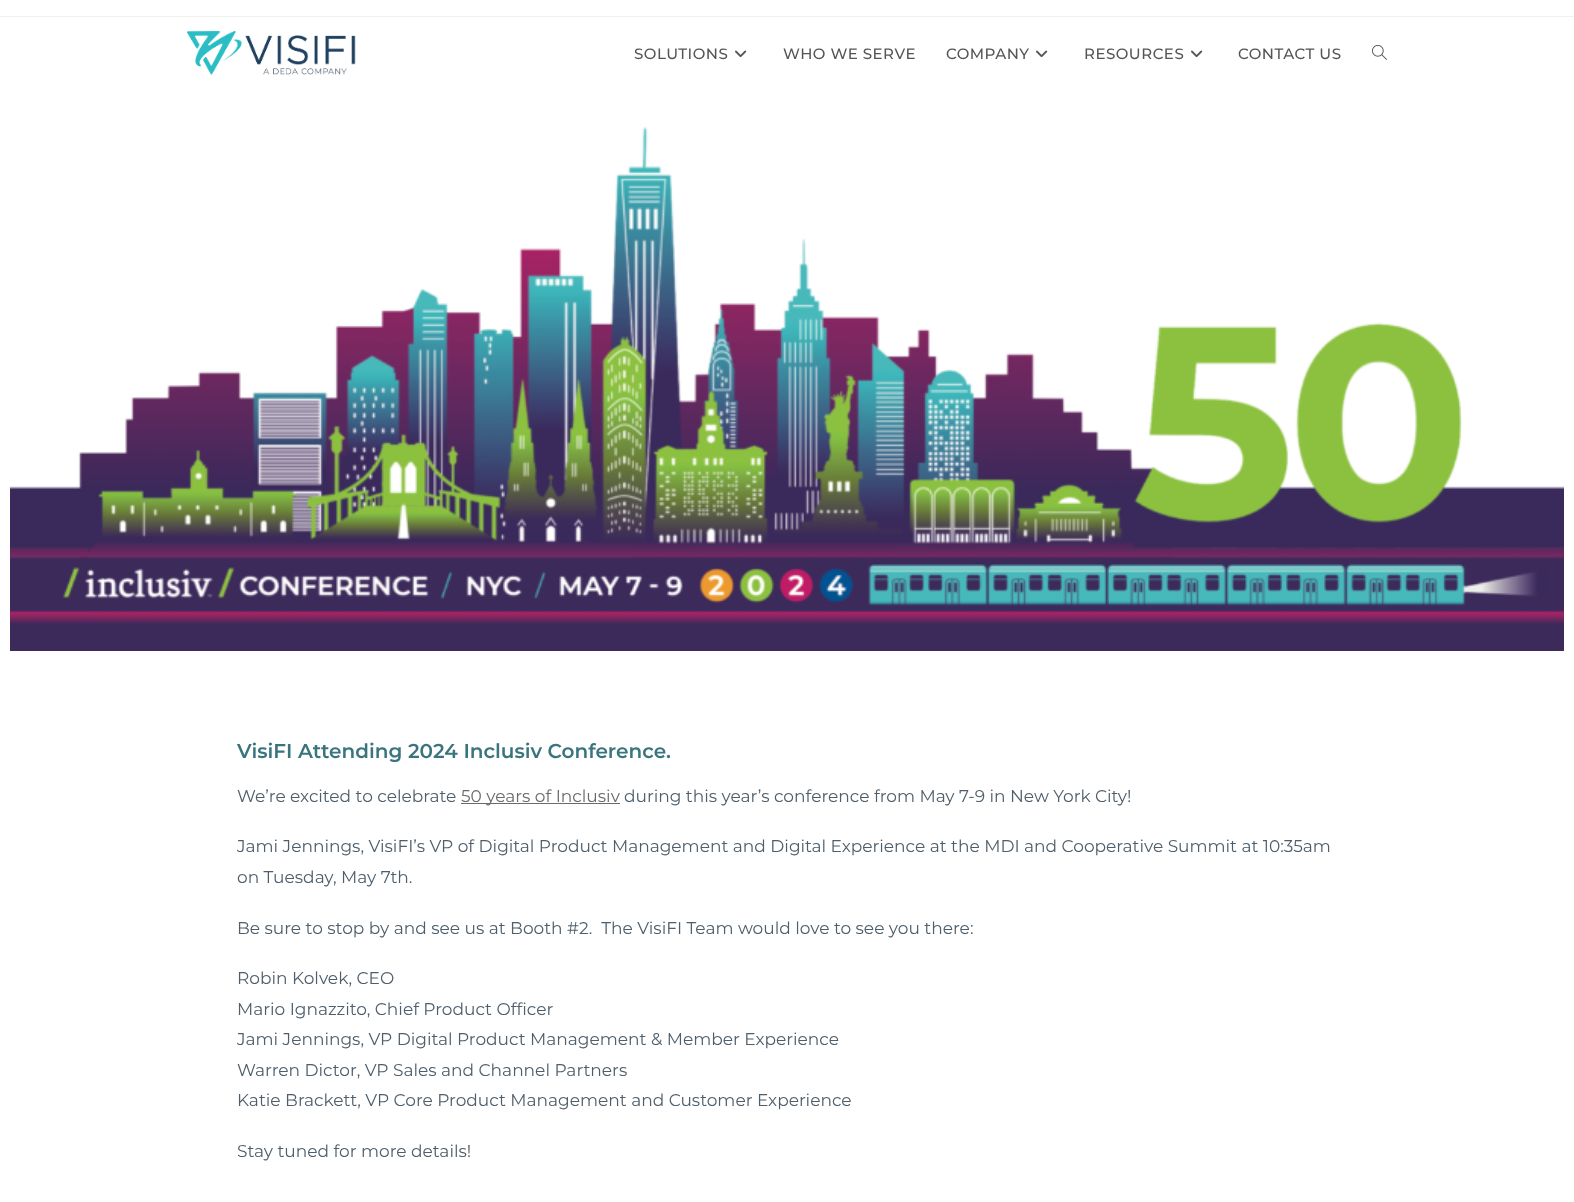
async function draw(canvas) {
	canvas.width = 1574;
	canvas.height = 1202;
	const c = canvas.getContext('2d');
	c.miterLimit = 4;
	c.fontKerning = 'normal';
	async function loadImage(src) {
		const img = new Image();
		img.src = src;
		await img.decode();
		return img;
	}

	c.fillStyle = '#fff';
	c.fillRect(0, 0, 1574, 1202);
	c.fillStyle = '#f1f1f1';
	c.fillRect(0, 16, 1574, 1);
	c.drawImage(await loadImage('img1.png'), 187, 31, 169, 44);
	c.letterSpacing = '0.5px';
	c.font = '500 15px Montserrat';
	c.fillStyle = '#555';
	c.fillText('SOLUTIONS', 634, 59);
	c.drawImage(await loadImage('img2.png'), 735, 50, 12, 8);
	c.fillText('WHO WE SERVE', 783, 59);
	c.fillText('COMPANY', 946, 59);
	c.drawImage(await loadImage('img2.png'), 1036, 50, 12, 8);
	c.fillText('RESOURCES', 1084, 59);
	c.drawImage(await loadImage('img2.png'), 1191, 50, 12, 8);
	c.fillText('CONTACT US', 1238, 59);
	c.drawImage(await loadImage('img3.png'), 1372, 44, 15, 16);
	c.drawImage(await loadImage('img4.png'), 10, 127, 1554, 524);
	c.letterSpacing = '0px';
	c.font = '600 20px Montserrat';
	c.fillStyle = '#3a757e';
	c.fillText('VisiFI Attending 2024 Inclusiv Conference.', 237, 758);
	c.font = '17px Montserrat';
	c.fillStyle = '#4e5e6b';
	c.fillText('We’re excited to celebrate', 237, 802);
	c.fillStyle = '#6b6b6b';
	c.fillRect(461, 803, 159, 1);
	c.fillText('50 years of Inclusiv', 461, 802);
	c.fillStyle = '#4e5e6b';
	for (const [text, x, y] of [
		['during this year’s conference from May 7-9 in New York City!', 624, 802],
		['Jami Jennings, VisiFI’s VP of Digital Product Management and Digital Experience at the MDI and Cooperative Summit at 10:35am', 237, 852],
		['on Tuesday, May 7th.', 237, 883],
		['Be sure to stop by and see us at Booth #2.  The VisiFI Team would love to see you there:', 237, 934],
		['Robin Kolvek, CEO', 237, 984],
		['Mario Ignazzito, Chief Product Officer', 237, 1015],
		['Jami Jennings, VP Digital Product Management & Member Experience', 237, 1045],
		['Warren Dictor, VP Sales and Channel Partners', 237, 1076],
		['Katie Brackett, VP Core Product Management and Customer Experience', 237, 1106],
		['Stay tuned for more details!', 237, 1157],
	]) {
		c.fillText(text, x, y);
	}
}

draw(document.querySelector('canvas'));
